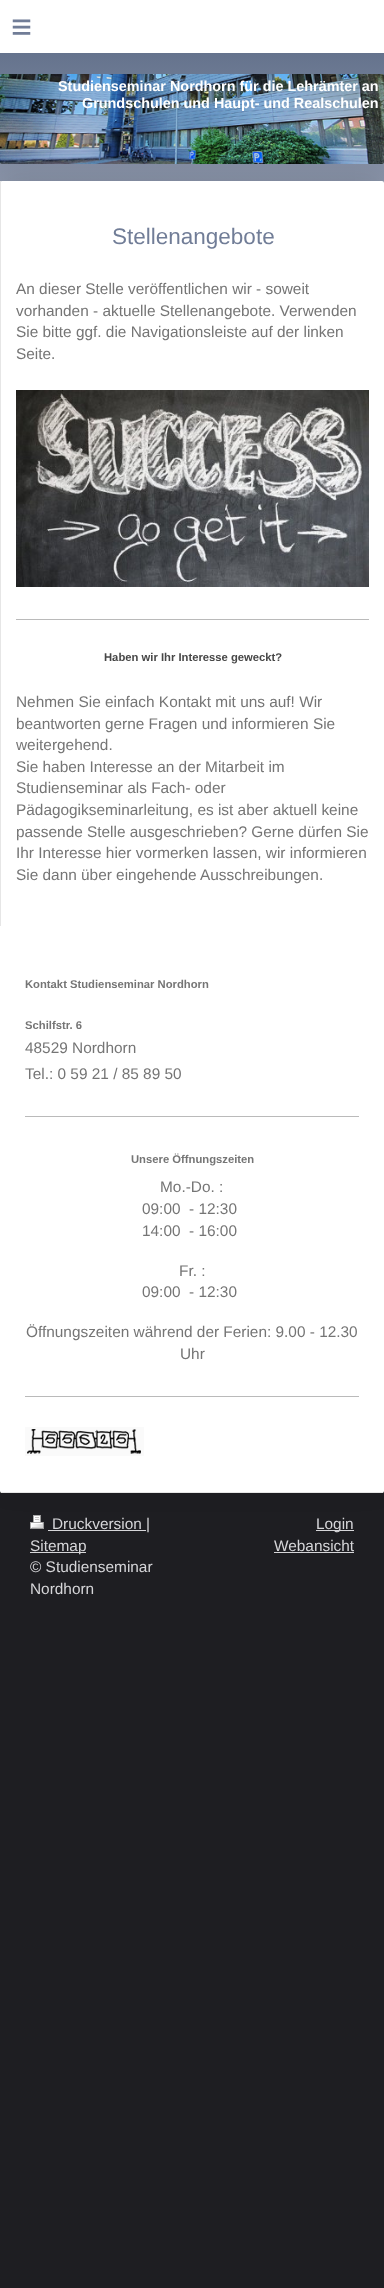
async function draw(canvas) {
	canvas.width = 384;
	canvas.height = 2288;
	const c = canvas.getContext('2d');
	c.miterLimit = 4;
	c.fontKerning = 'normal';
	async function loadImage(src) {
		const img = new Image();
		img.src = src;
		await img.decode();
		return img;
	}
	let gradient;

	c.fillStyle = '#1e1e22';
	c.fillRect(0, 0, 384, 2288);
	c.fillStyle = '#fff';
	c.fillRect(0, 0, 384, 53);
	c.letterSpacing = '10px';
	c.font = '36px Liberation Sans';
	c.fillStyle = '#717d97';
	c.fillText('≡', 11, 39);
	gradient = c.createLinearGradient(0, 227, 0, 53);
	gradient.addColorStop(0, '#99a2b5');
	gradient.addColorStop(1, '#65738d');
	c.fillStyle = gradient;
	c.fillRect(0, 53, 384, 130);
	c.drawImage(await loadImage('img1.png'), 0, 74, 384, 90);
	c.letterSpacing = '0px';
	c.font = 'bold 14.4px Liberation Sans';
	c.fillStyle = '#fff';
	c.fillText('Studienseminar Nordhorn für die Lehrämter an', 58, 91);
	c.fillText('Grundschulen und Haupt- und Realschulen', 82, 108);
	c.fillStyle = '#0000001a';
	c.filter = 'blur(15px)';
	c.beginPath();
	c.roundRect(0, 171, 384, 1312, 2);
	c.fill();
	c.filter = 'none';
	c.fillStyle = '#fff';
	c.beginPath();
	c.roundRect(0, 181, 384, 1312, 2);
	c.fill();
	c.fillStyle = '#e6e6e6';
	c.fillRect(1, 1492, 382, 1);
	c.fillRect(0, 181, 1, 745);
	c.font = '22.5px Liberation Sans';
	c.fillStyle = '#717d97';
	c.fillText('Stellenangebote', 112, 244);
	c.font = '15.4px Liberation Sans';
	c.fillStyle = '#757575';
	for (const [text, x, y] of [
		['An dieser Stelle veröffentlichen wir - soweit', 16, 294],
		['vorhanden - aktuelle Stellenangebote. Verwenden', 16, 316],
		['Sie bitte ggf. die Navigationsleiste auf der linken', 16, 337],
		['Seite.', 16, 359],
	]) {
		c.fillText(text, x, y);
	}
	c.drawImage(await loadImage('img2.png'), 16, 390, 353, 197);
	c.fillStyle = '#bababa';
	c.fillRect(16, 619, 353, 1);
	c.font = 'bold 11.25px Liberation Sans';
	c.fillStyle = '#474747';
	c.fillText('Haben wir Ihr Interesse geweckt?', 104, 661);
	c.font = '15.4px Liberation Sans';
	c.fillStyle = '#757575';
	for (const [text, x, y] of [
		['Nehmen Sie einfach Kontakt mit uns auf! Wir', 16, 707],
		['beantworten gerne Fragen und informieren Sie', 16, 729],
		['weitergehend.', 16, 750],
		['Sie haben Interesse an der Mitarbeit im', 16, 772],
		['Studienseminar als Fach- oder', 16, 793],
		['Pädagogikseminarleitung, es ist aber aktuell keine', 16, 815],
		['passende Stelle ausgeschrieben? Gerne dürfen Sie', 16, 837],
		['Ihr Interesse hier vormerken lassen, wir informieren', 16, 858],
		['Sie dann über eingehende Ausschreibungen.', 16, 880],
	]) {
		c.fillText(text, x, y);
	}
	c.font = 'bold 11.25px Liberation Sans';
	c.fillText('Kontakt Studienseminar Nordhorn', 25, 988);
	c.fillText('Schilfstr. 6', 25, 1029);
	c.font = '15.4px Liberation Sans';
	c.fillText('48529 Nordhorn', 25, 1053);
	c.fillText('Tel.: 0 59 21 / 85 89 50', 25, 1079);
	c.fillStyle = '#bababa';
	c.fillRect(25, 1116, 334, 1);
	c.font = 'bold 11.25px Liberation Sans';
	c.fillStyle = '#757575';
	c.fillText('Unsere Öffnungszeiten', 131, 1163);
	c.font = '15.4px Liberation Sans';
	for (const [text, x, y] of [
		['Mo.-Do. :', 160, 1192],
		['09:00  - 12:30', 142, 1214],
		['14:00  - 16:00', 142, 1236],
		['Fr. :', 179, 1276],
		['09:00  - 12:30', 142, 1297],
		['Öffnungszeiten während der Ferien: 9.00 - 12.30', 26, 1337],
		['Uhr', 180, 1359],
	]) {
		c.fillText(text, x, y);
	}
	c.fillStyle = '#bababa';
	c.fillRect(25, 1396, 334, 1);
	c.drawImage(await loadImage('img3.png'), 25, 1427, 16, 29);
	c.drawImage(await loadImage('img4.png'), 41, 1427, 17, 29);
	c.drawImage(await loadImage('img4.png'), 58, 1427, 17, 29);
	c.drawImage(await loadImage('img5.png'), 75, 1427, 21, 29);
	c.drawImage(await loadImage('img6.png'), 96, 1427, 16, 29);
	c.drawImage(await loadImage('img4.png'), 112, 1427, 17, 29);
	c.drawImage(await loadImage('img7.png'), 129, 1427, 15, 29);
	c.drawImage(await loadImage('img8.png'), 30, 1515, 14, 14);
	c.fillStyle = '#d6d6d9';
	c.fillRect(48, 1530, 98, 1);
	c.fillText('Druckversion |', 52, 1529);
	c.fillRect(30, 1552, 56, 1);
	for (const [text, x, y] of [
		['Sitemap', 30, 1551],
		['© Studienseminar', 30, 1572],
		['Nordhorn', 30, 1594],
	]) {
		c.fillText(text, x, y);
	}
	c.fillRect(316, 1530, 38, 1);
	c.fillText('Login', 316, 1529);
	c.fillText('Webansicht', 274, 1551);
	c.fillRect(274, 1552, 80, 1);
}

draw(document.querySelector('canvas'));
